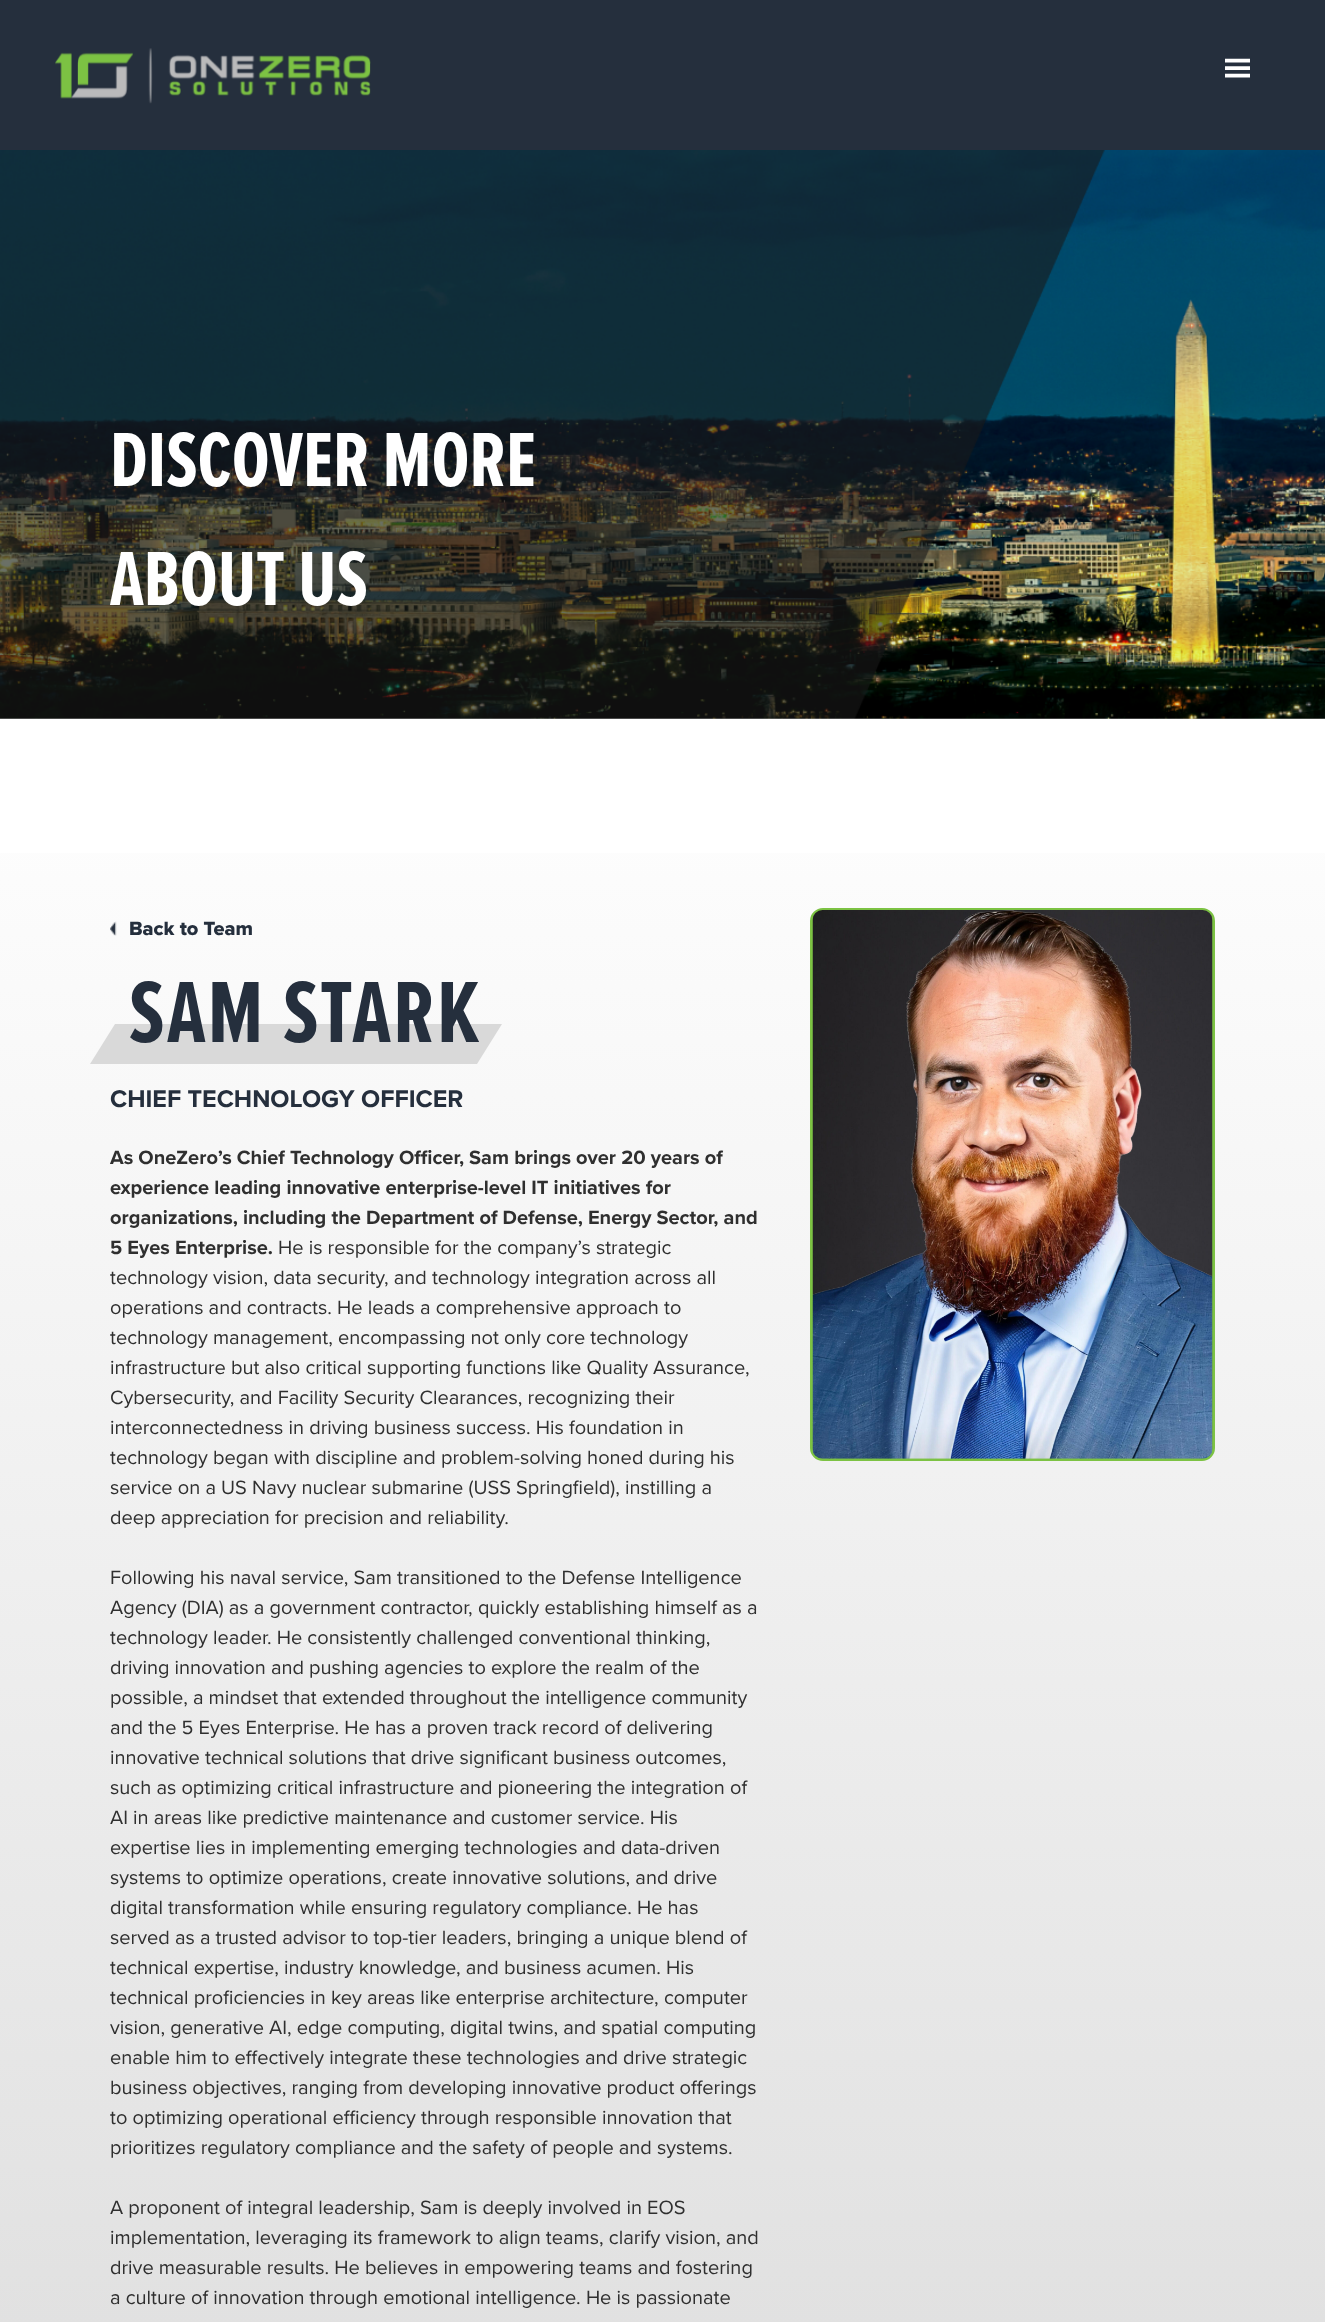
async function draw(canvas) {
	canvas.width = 1325;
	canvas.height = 2322;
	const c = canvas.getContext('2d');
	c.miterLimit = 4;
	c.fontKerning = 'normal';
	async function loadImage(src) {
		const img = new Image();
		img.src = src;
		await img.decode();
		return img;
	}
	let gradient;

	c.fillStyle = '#fff';
	c.fillRect(0, 0, 1325, 2322);
	c.fillStyle = '#252f3d';
	c.fillRect(0, 0, 1325, 150);
	c.drawImage(await loadImage('img1.png'), 55, 48, 316, 56);
	c.drawImage(await loadImage('img2.png'), 1225, 58, 25, 20);
	c.drawImage(await loadImage('img3.png'), 0, 150, 1325, 569);
	c.font = 'bold 79.5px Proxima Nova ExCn';
	c.fillStyle = '#fff';
	c.fillText('DISCOVER MORE', 110, 486);
	c.fillText('ABOUT US', 110, 605);
	gradient = c.createLinearGradient(662, 719, 663, 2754);
	gradient.addColorStop(0, '#fff');
	gradient.addColorStop(1, '#d9d9d9');
	c.fillStyle = gradient;
	c.fillRect(0, 853, 1325, 1469);
	c.drawImage(await loadImage('img4.png'), 110, 921, 7, 15);
	c.font = '800 20px Proxima Nova';
	c.fillStyle = '#252f3d';
	c.fillText('Back to Team', 129, 935);
	c.fillStyle = '#d9d9d9';
	c.beginPath();
	c.moveTo(502, 1024);
	c.lineTo(477, 1064);
	c.lineTo(90, 1064);
	c.lineTo(115, 1024);
	c.closePath();
	c.fill();
	c.letterSpacing = '2.5px';
	c.font = 'bold 90px Proxima Nova ExCn';
	c.fillStyle = '#252f3d';
	c.fillText('SAM STARK', 129, 1042);
	c.letterSpacing = '0px';
	c.font = 'bold 25px Proxima Nova';
	c.fillText('CHIEF TECHNOLOGY OFFICER', 110, 1107);
	c.font = 'bold 20px Proxima Nova';
	c.fillStyle = '#2f2f2f';
	for (const [text, x, y] of [
		['As OneZero’s Chief Technology Officer, Sam brings over 20 years of', 110, 1164],
		['experience leading innovative enterprise-level IT initiatives for', 110, 1194],
		['organizations, including the Department of Defense, Energy Sector, and', 110, 1224],
		['5 Eyes Enterprise.', 110, 1254],
	]) {
		c.fillText(text, x, y);
	}
	c.font = '20px Proxima Nova';
	for (const [text, x, y] of [
		['He is responsible for the company’s strategic', 278, 1254],
		['technology vision, data security, and technology integration across all', 110, 1284],
		['operations and contracts. He leads a comprehensive approach to', 110, 1314],
		['technology management, encompassing not only core technology', 110, 1344],
		['infrastructure but also critical supporting functions like Quality Assurance,', 110, 1374],
		['Cybersecurity, and Facility Security Clearances, recognizing their', 110, 1404],
		['interconnectedness in driving business success. His foundation in', 110, 1434],
		['technology began with discipline and problem-solving honed during his', 110, 1464],
		['service on a US Navy nuclear submarine (USS Springfield), instilling a', 110, 1494],
		['deep appreciation for precision and reliability.', 110, 1524],
		['Following his naval service, Sam transitioned to the Defense Intelligence', 110, 1584],
		['Agency (DIA) as a government contractor, quickly establishing himself as a', 110, 1614],
		['technology leader. He consistently challenged conventional thinking,', 110, 1644],
		['driving innovation and pushing agencies to explore the realm of the', 110, 1674],
		['possible, a mindset that extended throughout the intelligence community', 110, 1704],
		['and the 5 Eyes Enterprise. He has a proven track record of delivering', 110, 1734],
		['innovative technical solutions that drive significant business outcomes,', 110, 1764],
		['such as optimizing critical infrastructure and pioneering the integration of', 110, 1794],
		['AI in areas like predictive maintenance and customer service. His', 110, 1824],
		['expertise lies in implementing emerging technologies and data-driven', 110, 1854],
		['systems to optimize operations, create innovative solutions, and drive', 110, 1884],
		['digital transformation while ensuring regulatory compliance. He has', 110, 1914],
		['served as a trusted advisor to top-tier leaders, bringing a unique blend of', 110, 1944],
		['technical expertise, industry knowledge, and business acumen. His', 110, 1974],
		['technical proficiencies in key areas like enterprise architecture, computer', 110, 2004],
		['vision, generative AI, edge computing, digital twins, and spatial computing', 110, 2034],
		['enable him to effectively integrate these technologies and drive strategic', 110, 2064],
		['business objectives, ranging from developing innovative product offerings', 110, 2094],
		['to optimizing operational efficiency through responsible innovation that', 110, 2124],
		['prioritizes regulatory compliance and the safety of people and systems.', 110, 2154],
		['A proponent of integral leadership, Sam is deeply involved in EOS', 110, 2214],
		['implementation, leveraging its framework to align teams, clarify vision, and', 110, 2244],
		['drive measurable results. He believes in empowering teams and fostering', 110, 2274],
		['a culture of innovation through emotional intelligence. He is passionate', 110, 2304],
	]) {
		c.fillText(text, x, y);
	}
	c.beginPath();
	c.roundRect(811.5, 909.5, 402, 550, 11.5);
	c.strokeStyle = '#7cc243';
	c.lineWidth = 3;
	c.stroke();
	c.drawImage(await loadImage('img5.png'), 812, 910, 401, 549);
}

draw(document.querySelector('canvas'));
